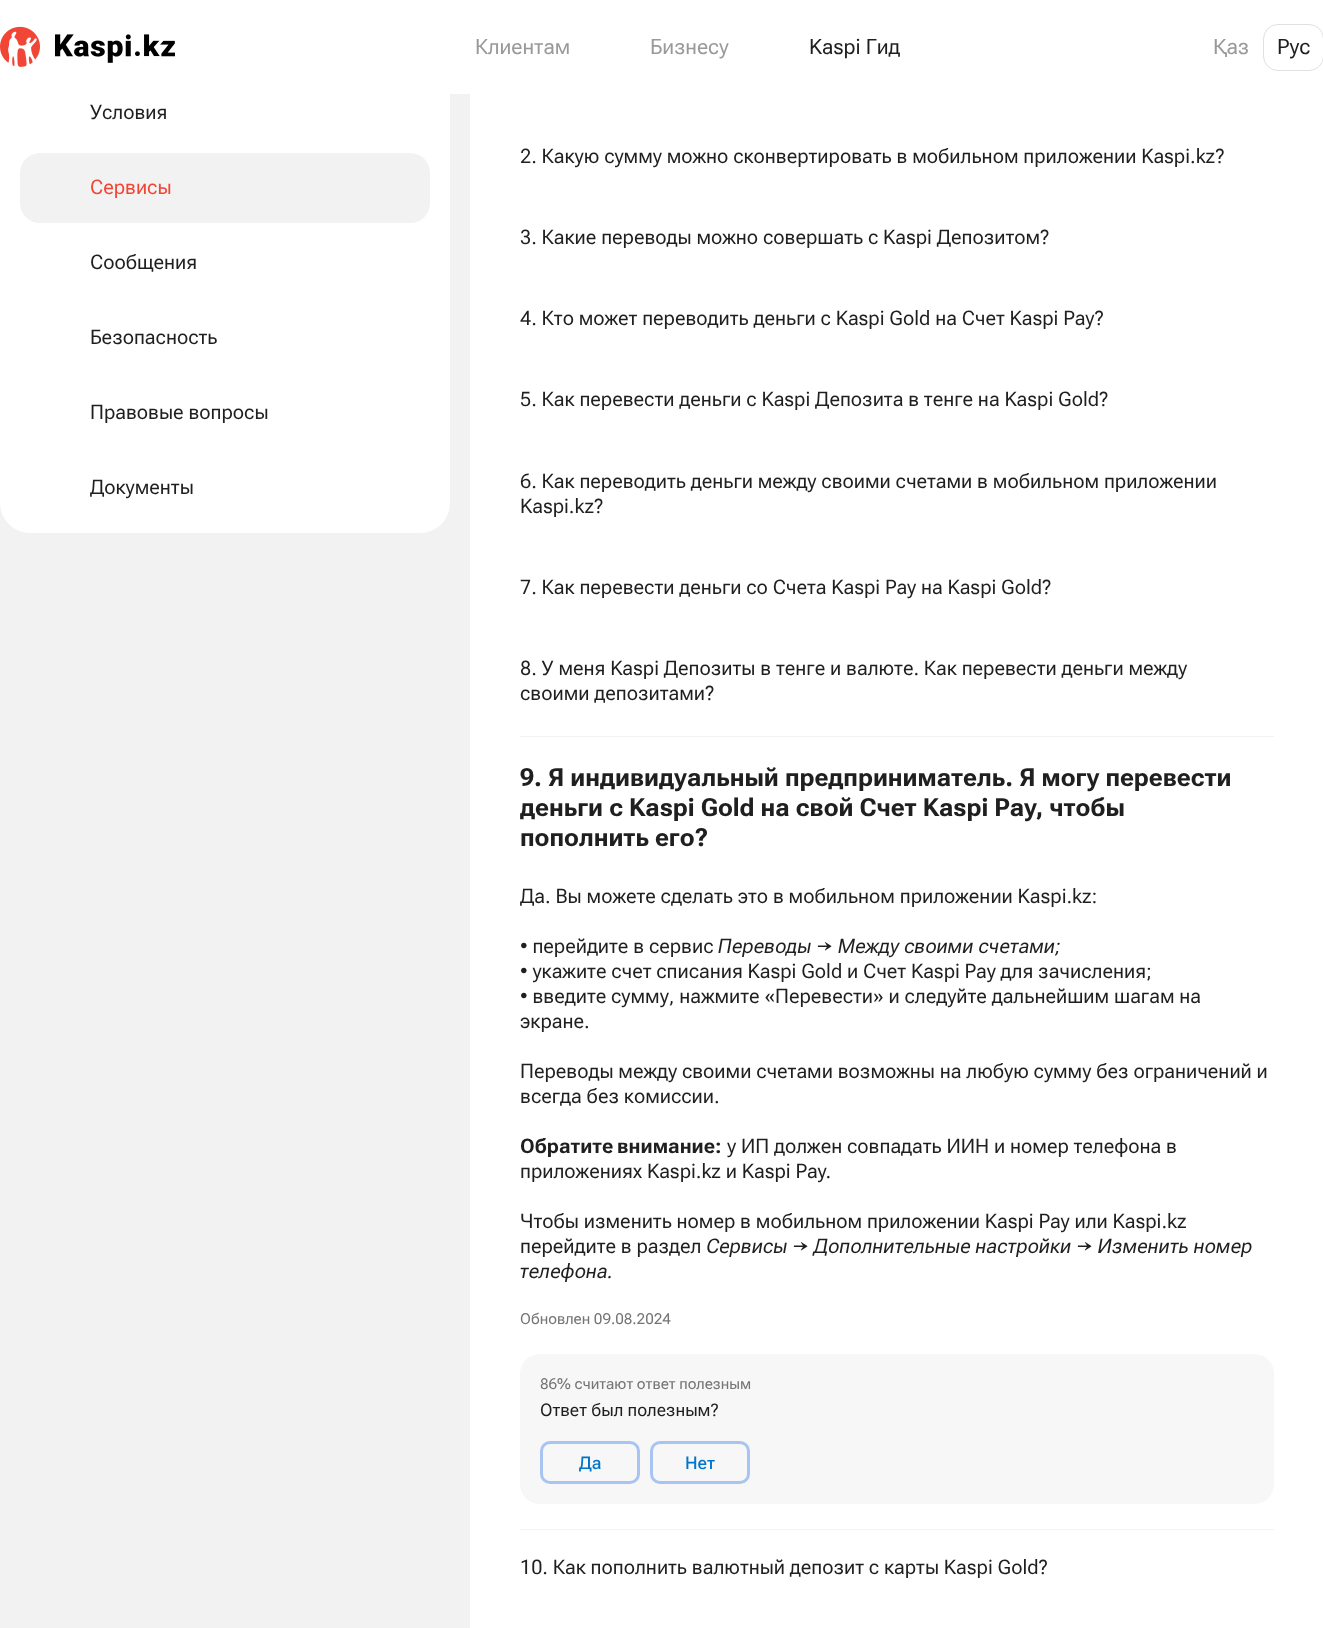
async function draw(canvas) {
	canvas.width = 1323;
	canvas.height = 1628;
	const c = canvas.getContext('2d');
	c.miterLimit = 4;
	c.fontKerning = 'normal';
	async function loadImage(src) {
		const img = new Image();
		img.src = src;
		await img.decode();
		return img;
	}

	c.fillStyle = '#f2f2f2';
	c.fillRect(0, 0, 1323, 1628);
	c.fillStyle = '#fff';
	c.fillRect(450, 0, 873, 94);
	c.beginPath();
	c.roundRect(0, -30, 450, 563, 30);
	c.fill();
	c.drawImage(await loadImage('img1.png'), 0, 26, 175, 41);
	c.font = 'italic 21.25px "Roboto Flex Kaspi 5"';
	c.fillStyle = '#999';
	c.fillText('Клиентам', 475, 54);
	c.fillText('Бизнесу', 650, 54);
	c.fillStyle = '#1f1f1f';
	c.fillText('Kaspi Гид', 809, 54);
	c.font = '21.25px Roboto Flex';
	c.fillStyle = '#999';
	c.fillText('Қаз', 1213, 54);
	c.beginPath();
	c.roundRect(1263.5, 24.5, 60, 46, 14.5);
	c.strokeStyle = '#e0e0e0';
	c.stroke();
	c.fillStyle = '#1f1f1f';
	c.fillText('Рус', 1277, 54);
	c.font = 'italic 20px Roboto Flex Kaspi';
	c.fillText('Условия', 90, 119);
	c.fillStyle = '#f2f2f2';
	c.beginPath();
	c.roundRect(20, 153, 410, 70, 20);
	c.fill();
	c.fillStyle = '#f14635';
	c.fillText('Сервисы', 90, 194);
	c.fillStyle = '#1f1f1f';
	for (const [text, x, y] of [
		['Сообщения', 90, 269],
		['Безопасность', 90, 344],
		['Правовые вопросы', 90, 419],
		['Документы', 90, 494],
	]) {
		c.fillText(text, x, y);
	}
	c.fillStyle = '#fff';
	c.fillRect(470, 94, 853, 1534);
	c.fillStyle = '#1f1f1f';
	for (const [text, x, y] of [
		['2. Какую сумму можно сконвертировать в мобильном приложении Kaspi.kz?', 520, 163],
		['3. Какие переводы можно совершать с Kaspi Депозитом?', 520, 244],
		['4. Кто может переводить деньги с Kaspi Gold на Счет Kaspi Pay?', 520, 325],
		['5. Как перевести деньги с Kaspi Депозита в тенге на Kaspi Gold?', 520, 406],
		['6. Как переводить деньги между своими счетами в мобильном приложении', 520, 488],
		['Kaspi.kz?', 520, 513],
		['7. Как перевести деньги со Счета Kaspi Pay на Kaspi Gold?', 520, 594],
	]) {
		c.fillText(text, x, y);
	}
	c.fillStyle = '#f2f2f2';
	c.fillRect(520, 736, 754, 1);
	c.fillStyle = '#1f1f1f';
	c.fillText('8. У меня Kaspi Депозиты в тенге и валюте. Как перевести деньги между', 520, 675);
	c.fillText('своими депозитами?', 520, 700);
	c.font = 'italic bold 25px Roboto Flex Kaspi';
	for (const [text, x, y] of [
		['9. Я индивидуальный предприниматель. Я могу перевести', 520, 786],
		['деньги с Kaspi Gold на свой Счет Kaspi Pay, чтобы', 520, 816],
		['пополнить его?', 520, 846],
	]) {
		c.fillText(text, x, y);
	}
	c.fillStyle = '#f2f2f2';
	c.fillRect(520, 1529, 754, 1);
	c.font = 'italic 20px Roboto Flex Kaspi';
	c.fillStyle = '#1f1f1f';
	c.fillText('Да. Вы можете сделать это в мобильном приложении Kaspi.kz:', 520, 903);
	c.fillText('• перейдите в сервис', 520, 953);
	c.font = 'italic 20px "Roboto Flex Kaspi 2"';
	c.fillText('Переводы → Между своими счетами;', 718, 953);
	c.font = 'italic 20px Roboto Flex Kaspi';
	for (const [text, x, y] of [
		['• укажите счет списания Kaspi Gold и Счет Kaspi Pay для зачисления;', 520, 978],
		['• введите сумму, нажмите «Перевести» и следуйте дальнейшим шагам на', 520, 1003],
		['экране.', 520, 1028],
		['Переводы между своими счетами возможны на любую сумму без ограничений и', 520, 1078],
		['всегда без комиссии.', 520, 1103],
	]) {
		c.fillText(text, x, y);
	}
	c.wordSpacing = '-1px';
	c.font = 'italic bold 20px "Roboto Flex Kaspi 2"';
	c.fillText('Обратите внимание:', 520, 1153);
	c.wordSpacing = '0px';
	c.font = 'italic 20px Roboto Flex Kaspi';
	for (const [text, x, y] of [
		['у ИП должен совпадать ИИН и номер телефона в', 727, 1153],
		['приложениях Kaspi.kz и Kaspi Pay.', 520, 1178],
		['Чтобы изменить номер в мобильном приложении Kaspi Pay или Kaspi.kz', 520, 1228],
		['перейдите в раздел', 520, 1253],
	]) {
		c.fillText(text, x, y);
	}
	c.font = 'italic 20px "Roboto Flex Kaspi 2"';
	c.fillText('Сервисы → Дополнительные настройки → Изменить номер', 706, 1253);
	c.fillText('телефона.', 520, 1278);
	c.font = 'italic 15px "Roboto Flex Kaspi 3"';
	c.fillStyle = '#757575';
	c.fillText('Обновлен 09.08.2024', 520, 1324);
	c.fillStyle = '#f7f7f7';
	c.beginPath();
	c.roundRect(520, 1354, 754, 150, 20);
	c.fill();
	c.fillStyle = '#757575';
	c.fillText('86% считают ответ полезным', 540, 1389);
	c.font = 'italic 17.5px "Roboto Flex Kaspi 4"';
	c.fillStyle = '#1f1f1f';
	c.fillText('Ответ был полезным?', 540, 1416);
	c.beginPath();
	c.roundRect(541.5, 1442.5, 97, 40, 8.5);
	c.strokeStyle = '#a7c4f2';
	c.lineWidth = 3;
	c.stroke();
	c.save();
	c.beginPath();
	c.rect(579, 1451, 22, 23);
	c.clip();
	c.font = 'italic 500 17.5px Roboto Flex Kaspi';
	c.fillStyle = '#0075ca';
	c.fillText('Да', 579, 1469);
	c.restore();
	c.beginPath();
	c.roundRect(651.5, 1442.5, 97, 40, 8.5);
	c.stroke();
	c.font = 'italic 500 17.5px Roboto Flex Kaspi';
	c.fillStyle = '#0075ca';
	c.fillText('Нет', 685, 1469);
	c.font = 'italic 20px Roboto Flex Kaspi';
	c.fillStyle = '#1f1f1f';
	c.fillText('10. Как пополнить валютный депозит с карты Kaspi Gold?', 520, 1574);
}

draw(document.querySelector('canvas'));
